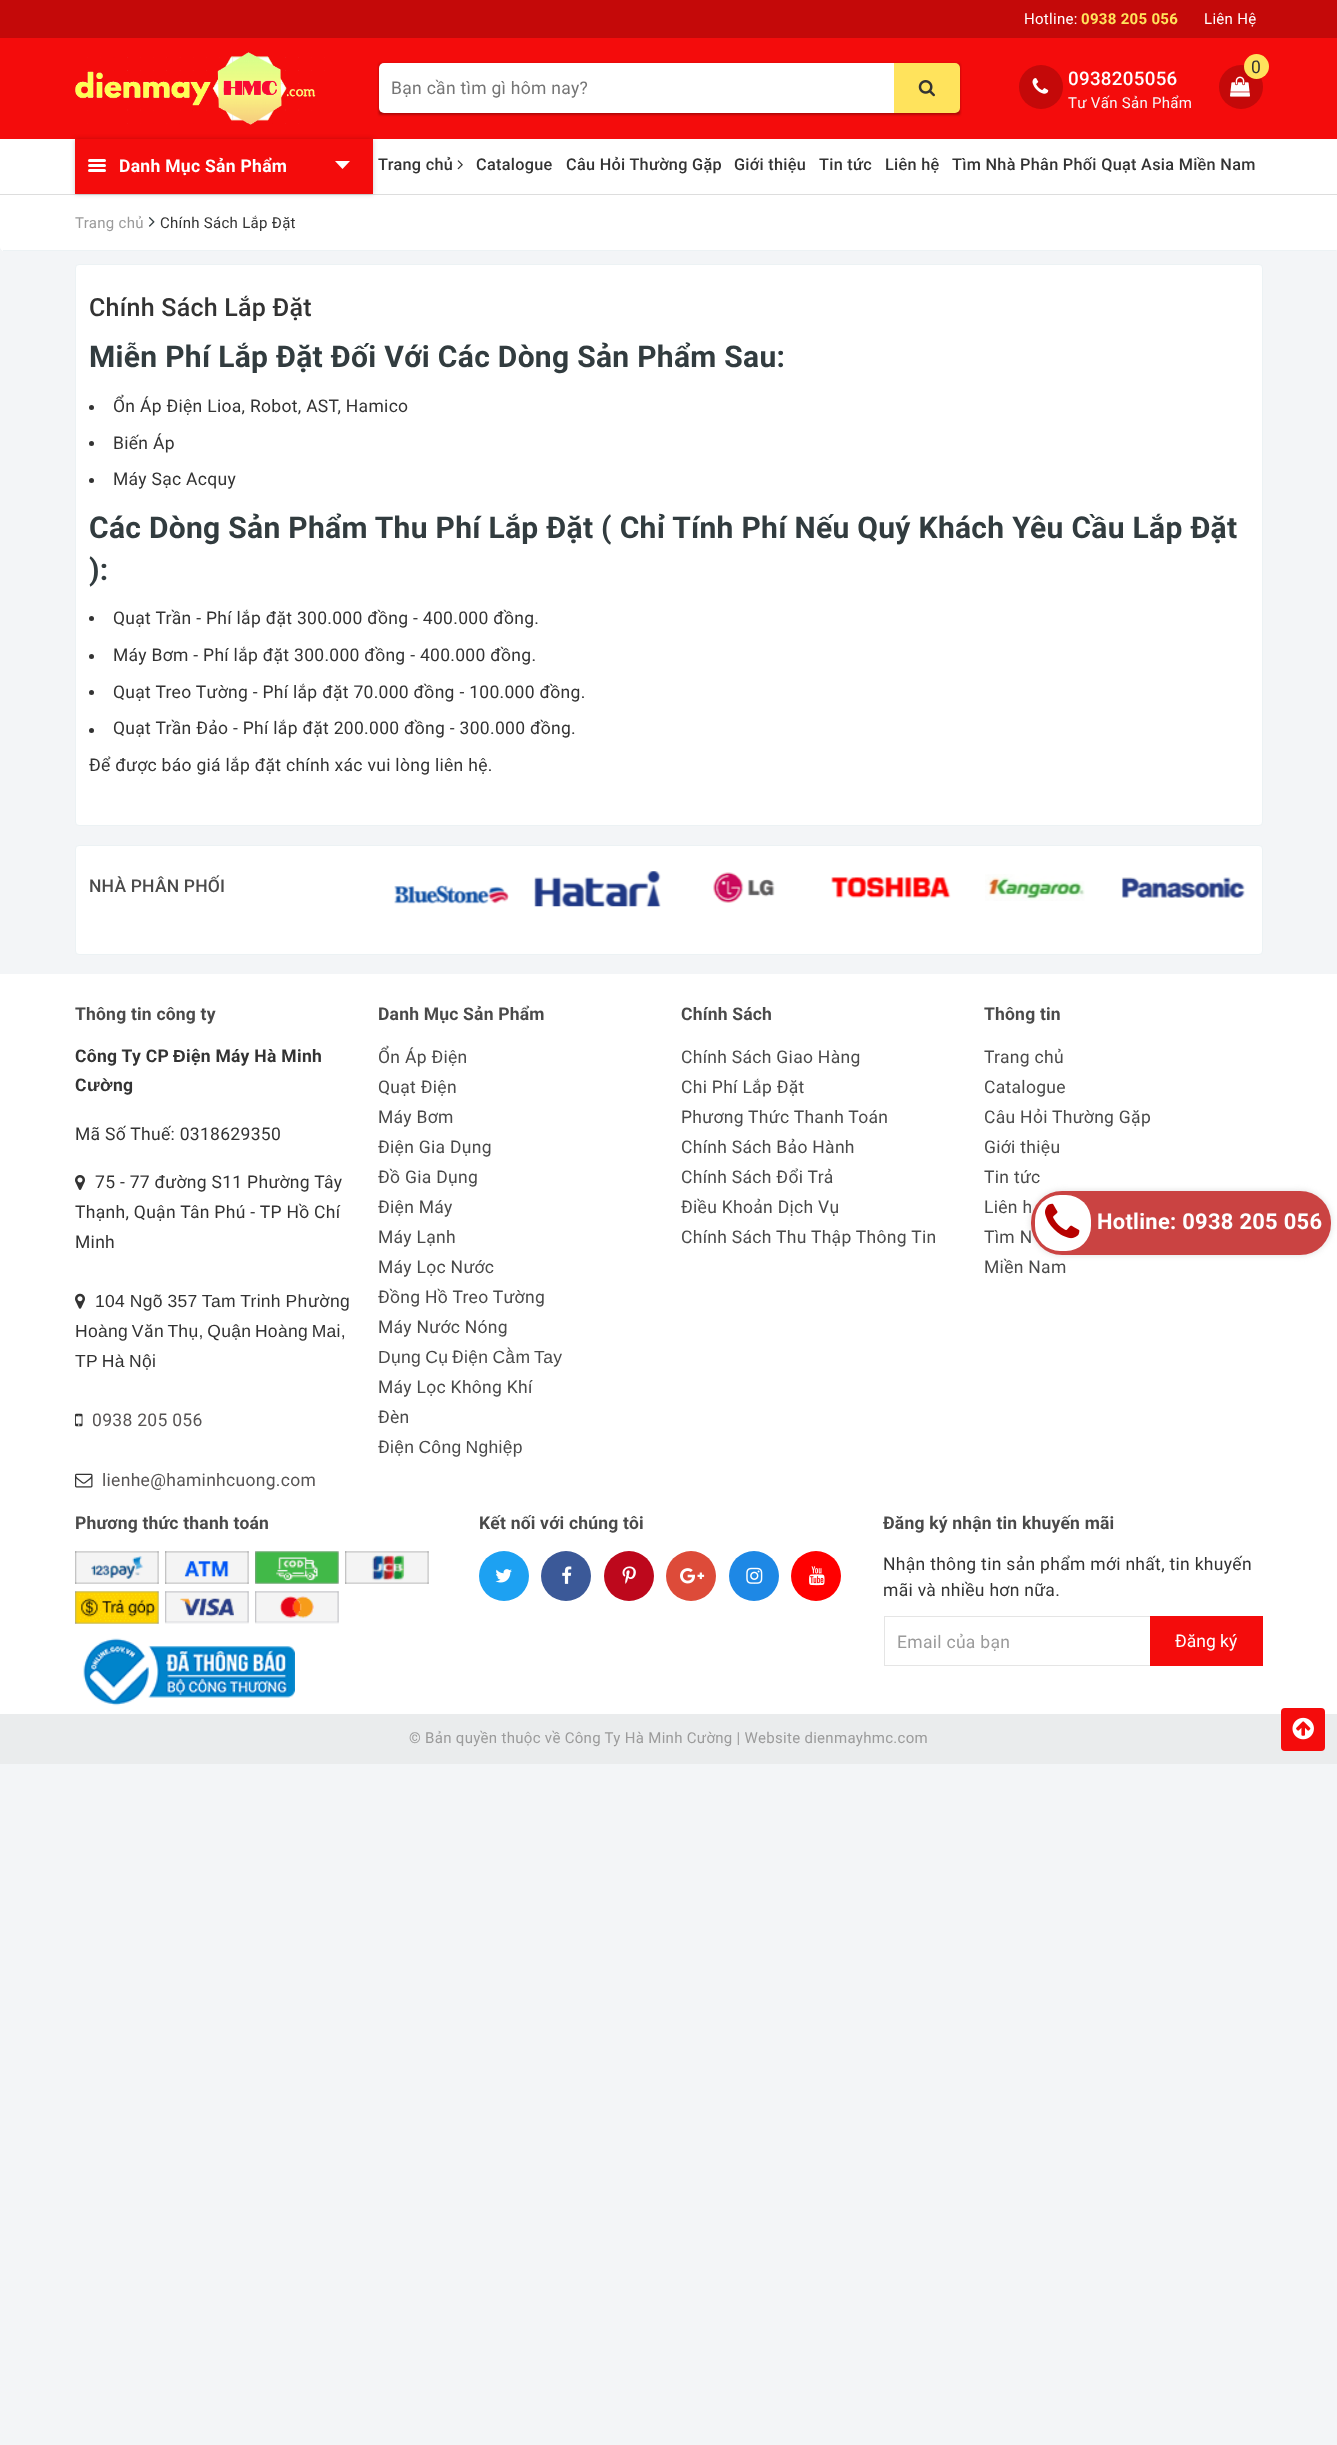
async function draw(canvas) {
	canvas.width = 1337;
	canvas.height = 2445;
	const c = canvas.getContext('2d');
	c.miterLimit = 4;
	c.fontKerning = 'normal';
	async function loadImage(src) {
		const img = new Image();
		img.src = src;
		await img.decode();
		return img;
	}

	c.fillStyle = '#f3f5f7';
	c.fillRect(0, 0, 1337, 2445);
	c.fillStyle = '#f40c0c';
	c.fillRect(0, 38, 1337, 101);
	c.fillStyle = '#c40909';
	c.fillRect(0, 0, 1337, 38);
	c.letterSpacing = '0.3px';
	c.font = '15px Roboto';
	c.fillStyle = '#fff';
	c.fillText('Hotline:', 1024, 24);
	c.font = 'bold 15px Roboto';
	c.fillStyle = '#ffe35c';
	c.fillText('0938 205 056', 1081, 24);
	c.font = '15px Roboto';
	c.fillStyle = '#fff';
	c.fillText('Liên Hệ', 1204, 24);
	c.drawImage(await loadImage('img1.png'), 75, 52, 250, 73);
	c.fillStyle = '#0000003d';
	c.filter = 'blur(1px)';
	c.beginPath();
	c.rect(379, 65, 581, 50);
	c.fill();
	c.filter = 'none';
	c.fillStyle = '#0000001f';
	c.filter = 'blur(1px)';
	c.beginPath();
	c.rect(379, 63, 581, 50);
	c.fill();
	c.filter = 'none';
	c.fillStyle = '#fff';
	c.beginPath();
	c.roundRect(379, 63, 516, 50, [5, 0, 0, 5]);
	c.fill();
	c.font = '17.5px Roboto';
	c.fillStyle = '#757575';
	c.fillText('Bạn cần tìm gì hôm nay?', 391, 94);
	c.fillStyle = '#ffe35c';
	c.beginPath();
	c.roundRect(894, 63, 66, 50, [0, 5, 5, 0]);
	c.fill();
	c.drawImage(await loadImage('img2.png'), 918, 80, 17, 17);
	c.fillStyle = '#c40909';
	c.beginPath();
	c.arc(1241, 87, 22, 0, 2 * Math.PI);
	c.fill();
	c.drawImage(await loadImage('img3.png'), 1230, 76, 20, 21);
	c.fillStyle = '#ffe35c';
	c.beginPath();
	c.arc(1256.5, 66.5, 12.5, 0, 2 * Math.PI);
	c.fill();
	c.fillStyle = '#333';
	c.fillText('0', 1251, 73);
	c.fillStyle = '#c40909';
	c.beginPath();
	c.arc(1041, 87, 22, 0, 2 * Math.PI);
	c.fill();
	c.drawImage(await loadImage('img4.png'), 1032, 78, 17, 16);
	c.font = '500 18.75px Roboto';
	c.fillStyle = '#fff';
	c.fillText('0938205056', 1068, 85);
	c.font = '15px Roboto';
	c.fillStyle = '#f7f7f7';
	c.fillText('Tư Vấn Sản Phẩm', 1068, 108);
	c.fillStyle = '#fff';
	c.fillRect(0, 139, 1337, 55);
	c.fillStyle = '#ddd';
	c.fillRect(0, 194, 1337, 1);
	c.fillStyle = '#fff';
	c.beginPath();
	c.moveTo(0, 195);
	c.lineTo(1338, 195);
	c.lineTo(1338, 247);
	c.bezierCurveTo(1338, 249, 1336, 251, 1334, 251);
	c.lineTo(4, 251);
	c.bezierCurveTo(2, 251, 0, 249, 0, 247);
	c.closePath();
	c.fill();
	c.fillStyle = '#00000033';
	c.filter = 'blur(2.5px)';
	c.beginPath();
	c.rect(75, 139, 298, 55);
	c.fill();
	c.filter = 'none';
	c.fillStyle = '#f40c0c';
	c.fillRect(75, 139, 298, 55);
	c.fillStyle = '#fff';
	c.beginPath();
	c.roundRect(88, 159, 18, 3, 1.5);
	c.fill();
	c.beginPath();
	c.roundRect(88, 164, 18, 3, 1.5);
	c.fill();
	c.beginPath();
	c.roundRect(88, 169, 18, 3, 1.5);
	c.fill();
	c.font = 'bold 17.5px Roboto';
	c.fillText('Danh Mục Sản Phẩm', 119, 172);
	c.beginPath();
	c.moveTo(335, 161);
	c.lineTo(350, 161);
	c.lineTo(342.5, 169);
	c.closePath();
	c.fill();
	c.font = '500 16.25px Roboto';
	c.fillStyle = '#333';
	c.fillText('Trang chủ', 378, 170);
	c.drawImage(await loadImage('img5.png'), 457, 160, 6, 10);
	for (const [text, x, y] of [
		['Catalogue', 476, 170],
		['Câu Hỏi Thường Gặp', 566, 170],
		['Giới thiệu', 734, 170],
		['Tin tức', 819, 170],
		['Liên hệ', 885, 170],
		['Tìm Nhà Phân Phối Quạt Asia Miền Nam', 952, 170],
	]) {
		c.fillText(text, x, y);
	}
	c.fillStyle = '#ecf2f4';
	c.fillRect(3, 250, 1333, 1);
	c.font = '15px Roboto';
	c.fillStyle = '#9b9b9b';
	c.fillText('Trang chủ', 75, 228);
	c.drawImage(await loadImage('img6.png'), 148, 217, 7, 10);
	c.fillStyle = '#333';
	c.fillText('Chính Sách Lắp Đặt', 160, 228);
	c.fillStyle = '#fff';
	c.beginPath();
	c.roundRect(75.5, 264.5, 1187, 561, 3.5);
	c.fill();
	c.strokeStyle = '#ecf2f4';
	c.stroke();
	c.letterSpacing = '0.25px';
	c.font = '500 25px Roboto';
	c.fillStyle = '#333';
	c.fillText('Chính Sách Lắp Đặt', 89, 316);
	c.letterSpacing = '0.3px';
	c.font = 'bold 30px Roboto';
	c.fillStyle = '#323c3f';
	c.fillText('Miễn Phí Lắp Đặt Đối Với Các Dòng Sản Phẩm Sau:', 89, 367);
	c.fillStyle = '#333';
	c.beginPath();
	c.arc(91.5, 407.5, 2.5, 0, 2 * Math.PI);
	c.fill();
	c.font = '17.5px Roboto';
	c.fillText('Ổn Áp Điện Lioa, Robot, AST, Hamico', 113, 412);
	c.beginPath();
	c.arc(91.5, 443.5, 2.5, 0, 2 * Math.PI);
	c.fill();
	c.fillText('Biến Áp', 113, 449);
	c.beginPath();
	c.arc(91.5, 480.5, 2.5, 0, 2 * Math.PI);
	c.fill();
	c.fillText('Máy Sạc Acquy', 113, 485);
	c.font = 'bold 30px Roboto';
	c.fillStyle = '#323c3f';
	c.fillText('Các Dòng Sản Phẩm Thu Phí Lắp Đặt ( Chỉ Tính Phí Nếu Quý Khách Yêu Cầu Lắp Đặt', 89, 538);
	c.fillText('):', 89, 580);
	c.fillStyle = '#333';
	c.beginPath();
	c.arc(91.5, 618.5, 2.5, 0, 2 * Math.PI);
	c.fill();
	c.font = '17.5px Roboto';
	c.fillText('Quạt Trần - Phí lắp đặt 300.000 đồng - 400.000 đồng.', 113, 624);
	c.beginPath();
	c.arc(91.5, 656.5, 2.5, 0, 2 * Math.PI);
	c.fill();
	c.fillText('Máy Bơm - Phí lắp đặt 300.000 đồng - 400.000 đồng.', 113, 661);
	c.beginPath();
	c.arc(91.5, 692.5, 2.5, 0, 2 * Math.PI);
	c.fill();
	c.fillText('Quạt Treo Tường - Phí lắp đặt 70.000 đồng - 100.000 đồng.', 113, 698);
	c.beginPath();
	c.arc(91.5, 730.5, 2.5, 0, 2 * Math.PI);
	c.fill();
	c.fillText('Quạt Trần Đảo - Phí lắp đặt 200.000 đồng - 300.000 đồng.', 113, 734);
	c.fillText('Để được báo giá lắp đặt chính xác vui lòng liên hệ.', 89, 771);
	c.fillStyle = '#fff';
	c.beginPath();
	c.roundRect(75.5, 845.5, 1187, 109, 3.5);
	c.fill();
	c.stroke();
	c.letterSpacing = '0.2px';
	c.font = '500 17.5px Roboto';
	c.fillStyle = '#4a4a4a';
	c.fillText('NHÀ PHÂN PHỐI', 89, 892);
	c.drawImage(await loadImage('img7.png'), 394, 885, 115, 19);
	c.drawImage(await loadImage('img8.png'), 534, 871, 127, 36);
	c.drawImage(await loadImage('img9.png'), 713, 872, 62, 31);
	c.drawImage(await loadImage('img10.png'), 831, 877, 120, 21);
	c.drawImage(await loadImage('img11.png'), 985, 874, 100, 27);
	c.drawImage(await loadImage('img12.png'), 1121, 877, 124, 21);
	c.fillStyle = '#fff';
	c.fillRect(0, 974, 1337, 740);
	c.font = 'bold 17.5px Roboto';
	c.fillStyle = '#4a4a4a';
	c.fillText('Thông tin công ty', 75, 1020);
	c.letterSpacing = '0.3px';
	c.fillStyle = '#333';
	c.fillText('Công Ty CP', 75, 1062);
	c.font = 'bold 17.5px Liberation Sans';
	c.fillText('Đ', 173, 1062);
	c.font = 'bold 17.5px Roboto';
	c.fillText('iện Máy Hà Minh', 186, 1062);
	c.fillText('C', 75, 1091);
	c.font = 'bold 17.5px Liberation Sans';
	c.fillText('ườ', 87, 1091);
	c.font = 'bold 17.5px Roboto';
	c.fillText('ng', 113, 1091);
	c.font = '17.5px Roboto';
	c.fillText('Mã Số Thuế: 0318629350', 75, 1140);
	c.drawImage(await loadImage('img13.png'), 75, 1175, 10, 15);
	for (const [text, x, y] of [
		['75 - 77 đường S11 Phường Tây', 95, 1188],
		['Thạnh, Quận Tân Phú - TP Hồ Chí', 75, 1218],
		['Minh', 75, 1248],
	]) {
		c.fillText(text, x, y);
	}
	c.drawImage(await loadImage('img14.png'), 75, 1293, 10, 16);
	c.wordSpacing = '-0.5px';
	c.font = '17.5px Liberation Sans';
	c.fillText('104 Ngõ 357 Tam Trinh Ph', 95, 1307);
	c.wordSpacing = '0px';
	c.font = '17.5px Roboto';
	c.fillText('ườ', 308, 1307);
	c.font = '17.5px Liberation Sans';
	c.fillText('ng', 330, 1307);
	c.wordSpacing = '-1.5px';
	c.fillText('Hoàng V', 75, 1337);
	c.wordSpacing = '0px';
	c.font = '17.5px Roboto';
	c.fillText('ă', 144, 1337);
	c.wordSpacing = '-1.5px';
	c.font = '17.5px Liberation Sans';
	c.fillText('n Thụ, Quận Hoàng Mai,', 154, 1337);
	c.wordSpacing = '-1px';
	c.fillText('TP Hà Nội', 75, 1367);
	c.drawImage(await loadImage('img15.png'), 75, 1413, 8, 14);
	c.wordSpacing = '0px';
	c.font = '17.5px Roboto';
	c.fillStyle = '#575454';
	c.fillText('0938 205 056', 92, 1426);
	c.drawImage(await loadImage('img16.png'), 75, 1473, 18, 15);
	c.fillText('lienhe@haminhcuong.com', 102, 1486);
	c.letterSpacing = '0.2px';
	c.font = 'bold 17.5px Roboto';
	c.fillStyle = '#4a4a4a';
	c.fillText('Danh Mục Sản Phẩm', 378, 1020);
	c.letterSpacing = '0.3px';
	c.font = '17.5px Roboto';
	for (const [text, x, y] of [
		['Ổn Áp Điện', 378, 1063],
		['Quạt Điện', 378, 1093],
		['Máy Bơm', 378, 1123],
		['Điện Gia Dụng', 378, 1153],
		['Đồ Gia Dụng', 378, 1183],
		['Điện Máy', 378, 1213],
		['Máy Lạnh', 378, 1243],
		['Máy Lọc Nước', 378, 1273],
		['Đồng Hồ Treo Tường', 378, 1303],
		['Máy Nước Nóng', 378, 1333],
	]) {
		c.fillText(text, x, y);
	}
	c.wordSpacing = '-1px';
	c.font = '17.5px Liberation Sans';
	c.fillText('Dụng Cụ', 378, 1363);
	c.wordSpacing = '0px';
	c.font = '17.5px Roboto';
	c.fillText('Đ', 452, 1363);
	c.wordSpacing = '-1px';
	c.font = '17.5px Liberation Sans';
	c.fillText('iện Cầm Tay', 464, 1363);
	c.wordSpacing = '0px';
	c.font = '17.5px Roboto';
	for (const [text, x, y] of [
		['Máy Lọc Không Khí', 378, 1393],
		['Đèn', 378, 1423],
		['Đ', 378, 1453],
	]) {
		c.fillText(text, x, y);
	}
	c.wordSpacing = '-1px';
	c.font = '17.5px Liberation Sans';
	c.fillText('iện Công Nghiệp', 390, 1453);
	c.letterSpacing = '0.2px';
	c.wordSpacing = '0px';
	c.font = 'bold 17.5px Roboto';
	c.fillText('Chính Sách', 681, 1020);
	c.letterSpacing = '0.3px';
	c.font = '17.5px Roboto';
	for (const [text, x, y] of [
		['Chính Sách Giao Hàng', 681, 1063],
		['Chi Phí Lắp Đặt', 681, 1093],
		['Phương Thức Thanh Toán', 681, 1123],
		['Chính Sách Bảo Hành', 681, 1153],
		['Chính Sách Đổi Trả', 681, 1183],
		['Điều Khoản Dịch Vụ', 681, 1213],
		['Chính Sách Thu Thập Thông Tin', 681, 1243],
	]) {
		c.fillText(text, x, y);
	}
	c.letterSpacing = '0.2px';
	c.font = 'bold 17.5px Roboto';
	c.fillText('Thông tin', 984, 1020);
	c.letterSpacing = '0.3px';
	c.font = '17.5px Roboto';
	for (const [text, x, y] of [
		['Trang chủ', 984, 1063],
		['Catalogue', 984, 1093],
		['Câu Hỏi Thường Gặp', 984, 1123],
		['Giới thiệu', 984, 1153],
		['Tin tức', 984, 1183],
		['Liên h', 984, 1213],
		['Tìm N', 984, 1243],
		['Miền Nam', 984, 1273],
	]) {
		c.fillText(text, x, y);
	}
	c.letterSpacing = '0.2px';
	c.font = 'bold 17.5px Roboto';
	c.fillText('Phương thức thanh toán', 75, 1529);
	c.drawImage(await loadImage('img17.png'), 75, 1551, 84, 33);
	c.drawImage(await loadImage('img18.png'), 165, 1551, 84, 33);
	c.drawImage(await loadImage('img19.png'), 255, 1551, 84, 33);
	c.drawImage(await loadImage('img20.png'), 345, 1551, 84, 33);
	c.drawImage(await loadImage('img21.png'), 75, 1591, 84, 33);
	c.drawImage(await loadImage('img22.png'), 165, 1591, 84, 33);
	c.drawImage(await loadImage('img23.png'), 255, 1591, 84, 33);
	c.drawImage(await loadImage('img24.png'), 83, 1638, 212, 68);
	c.fillText('Kết nối với chúng tôi', 479, 1529);
	c.fillStyle = '#1da1f2';
	c.beginPath();
	c.arc(504, 1576, 25, 0, 2 * Math.PI);
	c.fill();
	c.drawImage(await loadImage('img25.png'), 495, 1569, 17, 14);
	c.fillStyle = '#3b5998';
	c.beginPath();
	c.arc(566, 1576, 25, 0, 2 * Math.PI);
	c.fill();
	c.drawImage(await loadImage('img26.png'), 562, 1566, 10, 18);
	c.fillStyle = '#bd081c';
	c.beginPath();
	c.arc(629, 1576, 25, 0, 2 * Math.PI);
	c.fill();
	c.drawImage(await loadImage('img27.png'), 622, 1566, 14, 18);
	c.fillStyle = '#dd4b39';
	c.beginPath();
	c.arc(691, 1576, 25, 0, 2 * Math.PI);
	c.fill();
	c.drawImage(await loadImage('img28.png'), 680, 1568, 25, 16);
	c.fillStyle = '#1e88e5';
	c.beginPath();
	c.arc(754, 1576, 25, 0, 2 * Math.PI);
	c.fill();
	c.drawImage(await loadImage('img29.png'), 746, 1567, 17, 17);
	c.fillStyle = '#f00';
	c.beginPath();
	c.arc(816, 1576, 25, 0, 2 * Math.PI);
	c.fill();
	c.drawImage(await loadImage('img30.png'), 809, 1566, 16, 20);
	c.fillStyle = '#4a4a4a';
	c.fillText('Đăng ký nhận tin khuyến mãi', 883, 1529);
	c.letterSpacing = '0.3px';
	c.font = '17.5px Roboto';
	c.fillStyle = '#333';
	c.fillText('Nhận thông tin sản phẩm mới nhất, tin khuyến', 883, 1570);
	c.fillText('mãi và nhiều hơn nữa.', 883, 1596);
	c.strokeStyle = '#e5e5e5';
	c.strokeRect(884.5, 1616.5, 266, 49);
	c.fillStyle = '#9b9b9b';
	c.fillText('Email của bạn', 897, 1648);
	c.fillStyle = '#f40c0c';
	c.fillRect(1150, 1616, 113, 50);
	c.letterSpacing = '0px';
	c.fillStyle = '#fff';
	c.fillText('Đăng ký', 1175, 1647);
	c.fillStyle = '#eaeced';
	c.fillRect(0, 1714, 1337, 50);
	c.letterSpacing = '0.3px';
	c.font = '15px Roboto';
	c.fillStyle = '#9b9b9b';
	c.fillText('© Bản quyền thuộc về Công Ty Hà Minh Cường | Website dienmayhmc.com', 409, 1743);
	c.fillStyle = '#f40c0c';
	c.beginPath();
	c.roundRect(1281, 1708, 44, 43, 4);
	c.fill();
	c.drawImage(await loadImage('img31.png'), 1292, 1717, 22, 23);
	c.save();
	c.beginPath();
	c.moveTo(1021, 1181);
	c.lineTo(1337, 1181);
	c.lineTo(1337, 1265);
	c.lineTo(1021, 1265);
	c.closePath();
	c.moveTo(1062, 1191);
	c.lineTo(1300, 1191);
	c.bezierCurveTo(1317, 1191, 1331, 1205, 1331, 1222);
	c.lineTo(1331, 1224);
	c.bezierCurveTo(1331, 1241, 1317, 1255, 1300, 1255);
	c.lineTo(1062, 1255);
	c.bezierCurveTo(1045, 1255, 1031, 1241, 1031, 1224);
	c.lineTo(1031, 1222);
	c.bezierCurveTo(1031, 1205, 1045, 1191, 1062, 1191);
	c.closePath();
	c.clip('evenodd');
	c.fillStyle = '#ddd';
	c.filter = 'blur(3px)';
	c.beginPath();
	c.roundRect(1031, 1191, 300, 64, 31);
	c.fill();
	c.filter = 'none';
	c.restore();
	c.fillStyle = '#b70100bd';
	c.beginPath();
	c.roundRect(1031, 1191, 300, 64, 31);
	c.fill();
	c.fillStyle = '#fff';
	c.beginPath();
	c.roundRect(1035, 1195, 56, 56, 25);
	c.fill();
	c.drawImage(await loadImage('img32.png'), 1045, 1203, 35, 36);
	c.font = 'bold 21.9px Roboto';
	c.fillText('Hotline: 0938 205 056', 1097, 1229);
}

draw(document.querySelector('canvas'));
